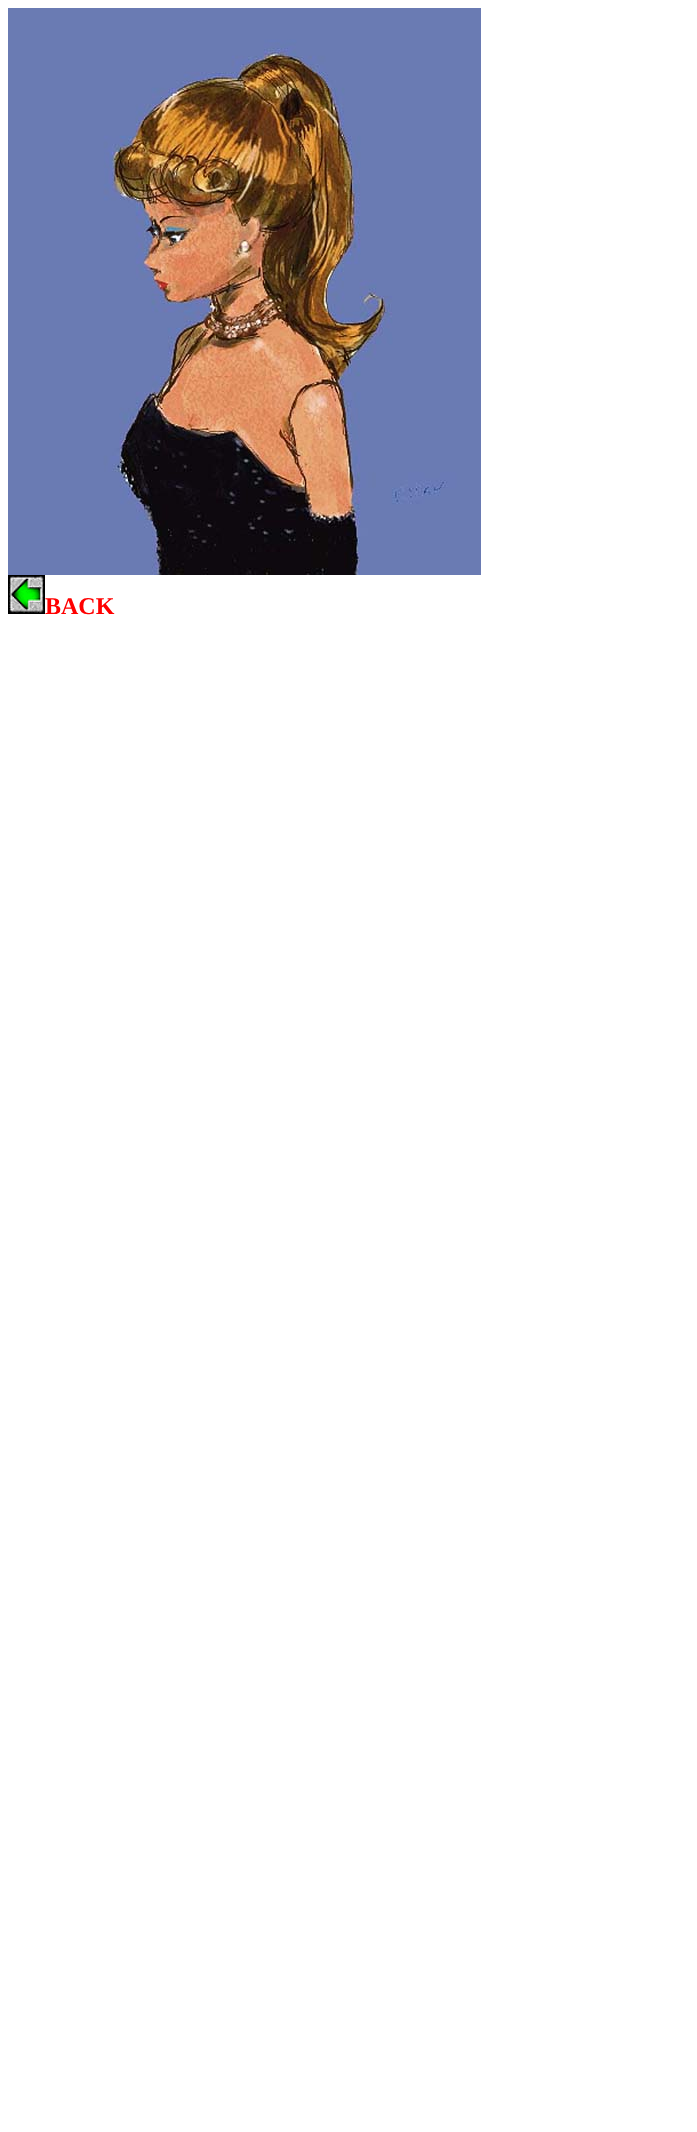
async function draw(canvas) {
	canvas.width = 697;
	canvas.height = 2132;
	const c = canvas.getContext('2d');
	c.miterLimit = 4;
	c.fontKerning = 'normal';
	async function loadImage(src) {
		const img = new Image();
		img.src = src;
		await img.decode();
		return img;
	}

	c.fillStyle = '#fff';
	c.fillRect(0, 0, 697, 2132);
	c.drawImage(await loadImage('img1.png'), 8, 8, 473, 567);
	c.drawImage(await loadImage('img2.png'), 8, 575, 37, 39);
	c.font = 'bold 24px Liberation Serif';
	c.fillStyle = '#f00';
	c.fillText('BACK', 45, 614);
}

draw(document.querySelector('canvas'));
